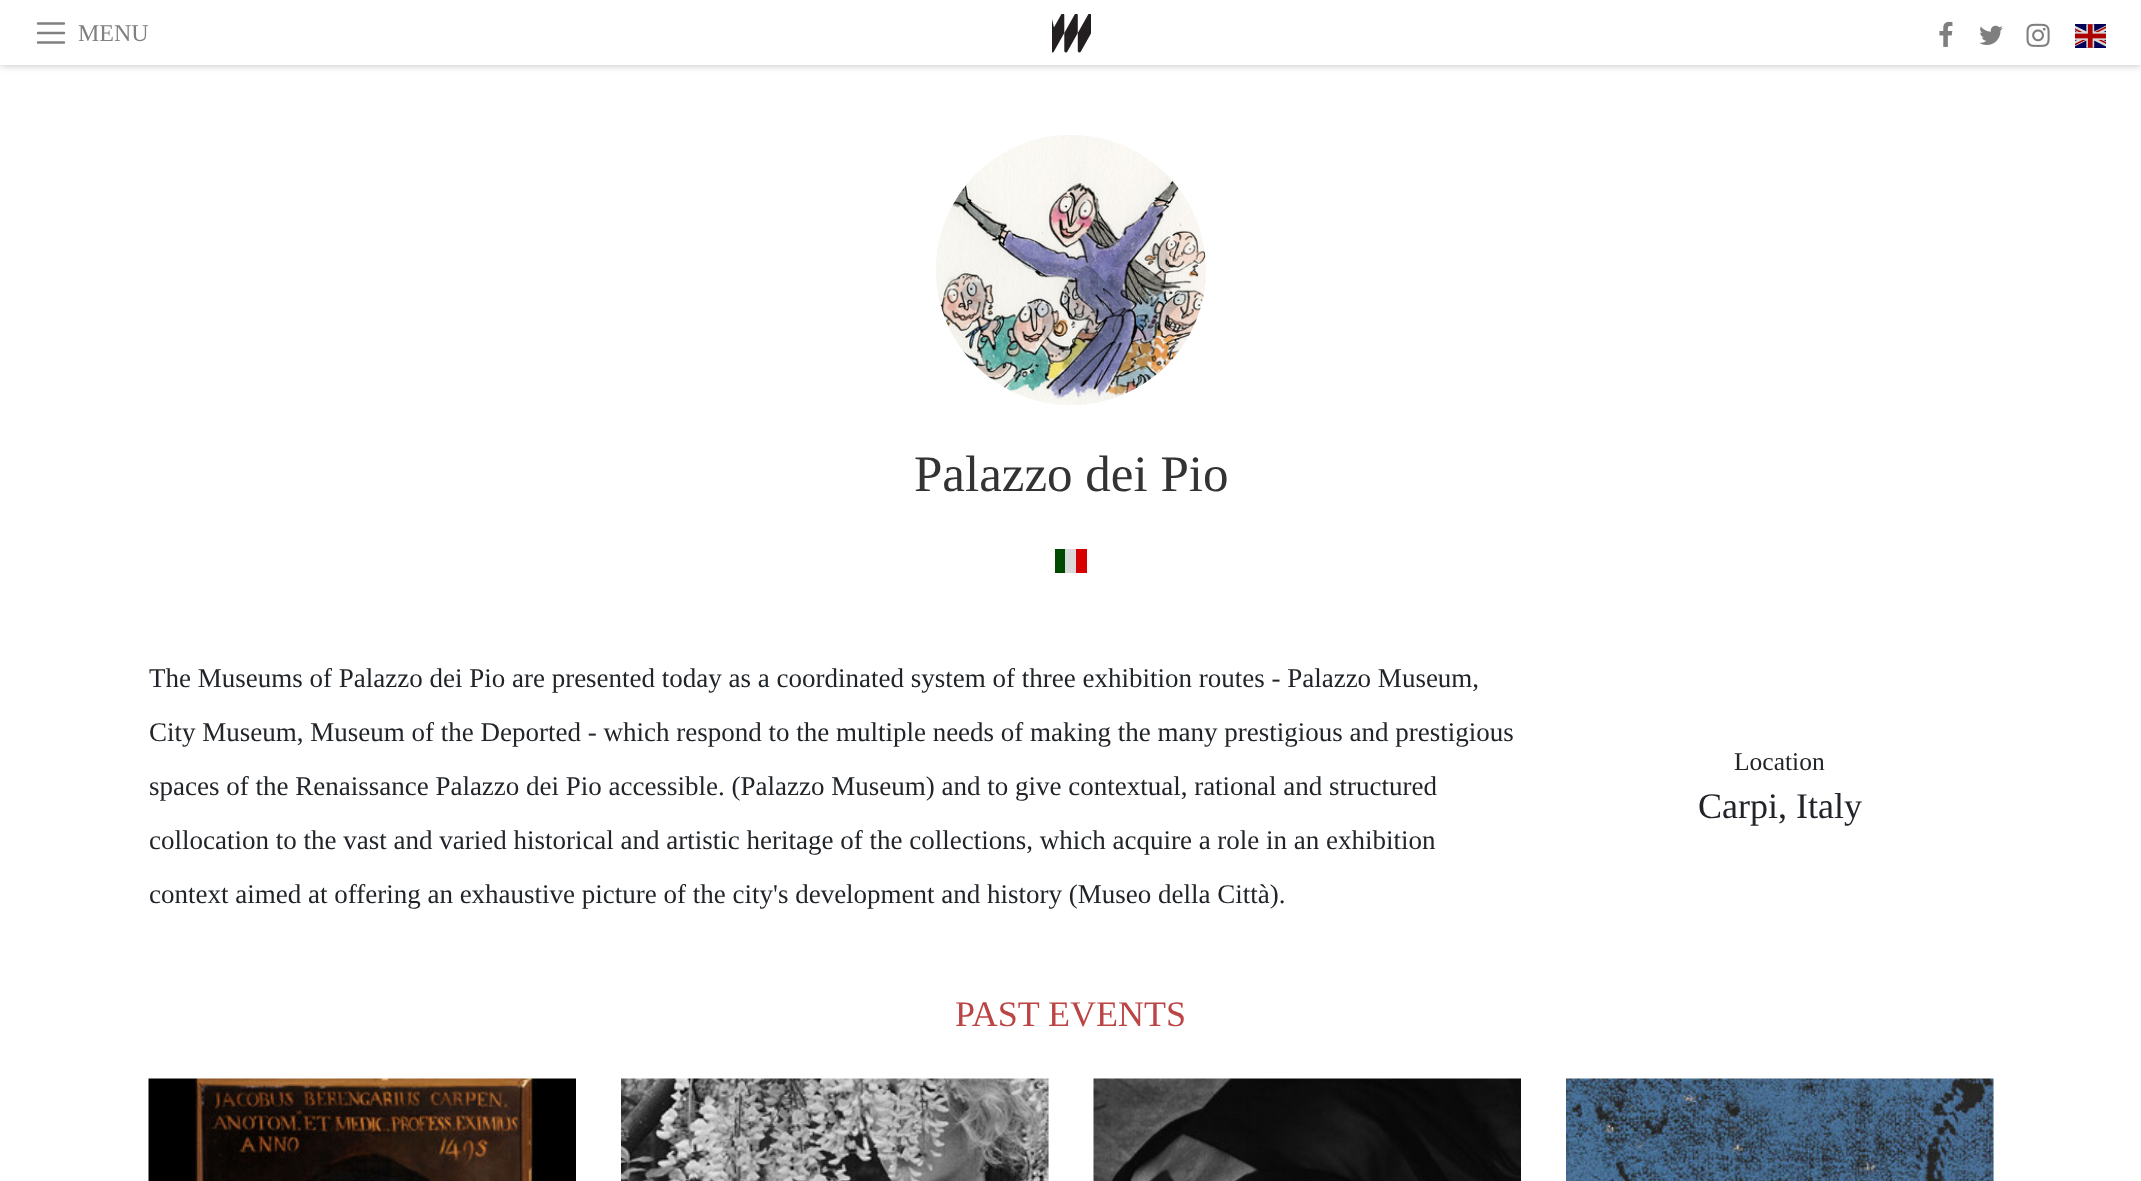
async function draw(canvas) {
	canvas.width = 2141;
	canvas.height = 1181;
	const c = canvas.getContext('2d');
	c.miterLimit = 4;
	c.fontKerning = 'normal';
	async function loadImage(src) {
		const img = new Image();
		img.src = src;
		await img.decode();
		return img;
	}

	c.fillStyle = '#fff';
	c.fillRect(0, 0, 2141, 1181);
	c.fillStyle = '#00000040';
	c.filter = 'blur(4px)';
	c.beginPath();
	c.rect(0, 0, 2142, 65);
	c.fill();
	c.filter = 'none';
	c.fillStyle = '#fff';
	c.fillRect(0, 0, 2141, 65);
	c.beginPath();
	c.moveTo(38, 23.5);
	c.lineTo(64, 23.5);
	c.moveTo(38, 33);
	c.lineTo(64, 33);
	c.moveTo(38, 42.5);
	c.lineTo(64, 42.5);
	c.strokeStyle = '#808080';
	c.lineWidth = 2.4;
	c.lineCap = 'round';
	c.stroke();
	c.font = '24px Liberation Serif';
	c.fillStyle = '#808080';
	c.fillText('MENU', 78, 41);
	c.drawImage(await loadImage('img1.png'), 1052, 14, 39, 39);
	c.drawImage(await loadImage('img2.png'), 1939, 21, 14, 26);
	c.drawImage(await loadImage('img3.png'), 1979, 25, 24, 20);
	c.drawImage(await loadImage('img4.png'), 2026, 23, 24, 24);
	c.drawImage(await loadImage('img5.png'), 2075, 24, 31, 24);
	c.fillStyle = '#f5f5f5';
	c.beginPath();
	c.arc(1071, 270, 135, 0, 2 * Math.PI);
	c.fill();
	c.drawImage(await loadImage('img6.png'), 936, 135, 270, 270);
	c.font = '51px Liberation Serif';
	c.fillStyle = '#333';
	c.fillText('Palazzo dei Pio', 914, 491);
	for (const [x, y, w, h, color] of [
		[1065, 549, 11, 24, '#d9d9d9'],
		[1055, 549, 10, 24, '#004a00'],
		[1076, 549, 11, 24, '#d60000'],
	]) {
		c.fillStyle = color;
		c.fillRect(x, y, w, h);
	}
	c.font = '27px Liberation Serif';
	c.fillStyle = '#212529';
	for (const [text, x, y] of [
		['The Museums of Palazzo dei Pio are presented today as a coordinated system of three exhibition routes - Palazzo Museum,', 149, 687],
		['City Museum, Museum of the Deported - which respond to the multiple needs of making the many prestigious and prestigious', 149, 741],
		['spaces of the Renaissance Palazzo dei Pio accessible. (Palazzo Museum) and to give contextual, rational and structured', 149, 795],
		['collocation to the vast and varied historical and artistic heritage of the collections, which acquire a role in an exhibition', 149, 849],
		['context aimed at offering an exhaustive picture of the city\'s development and history (Museo della Città).', 149, 903],
	]) {
		c.fillText(text, x, y);
	}
	c.font = '25.5px Liberation Serif';
	c.fillText('Location', 1734, 770);
	c.font = '36px Liberation Serif';
	c.fillText('Carpi, Italy', 1698, 818);
	c.fillStyle = '#b44';
	c.fillText('PAST EVENTS', 955, 1026);
	c.drawImage(await loadImage('img7.png'), 148, 1078, 428, 103);
	c.fillStyle = '#f5f5f5';
	c.fillRect(1048, 1079, 1, 102);
	c.drawImage(await loadImage('img8.png'), 621, 1078, 428, 103);
	c.drawImage(await loadImage('img9.png'), 1093, 1078, 428, 103);
	c.fillRect(1993, 1079, 1, 102);
	c.drawImage(await loadImage('img10.png'), 1566, 1078, 428, 103);
}

draw(document.querySelector('canvas'));
